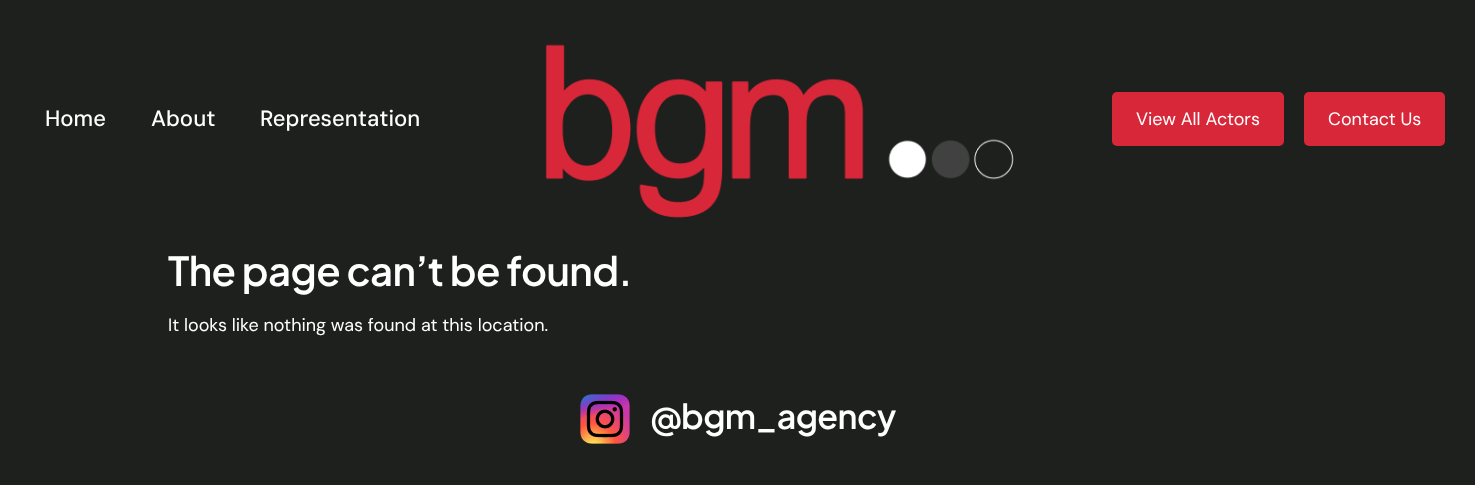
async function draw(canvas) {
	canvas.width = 1475;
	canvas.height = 485;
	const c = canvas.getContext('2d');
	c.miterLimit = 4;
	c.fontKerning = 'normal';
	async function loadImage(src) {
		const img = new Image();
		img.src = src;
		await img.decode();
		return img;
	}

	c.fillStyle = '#1e201e';
	c.fillRect(0, 0, 1475, 485);
	c.font = '500 22px DM Sans';
	c.fillStyle = '#fff';
	for (const [text, x, y] of [
		['Home', 45, 126],
		['About', 151, 126],
		['Representation', 260, 126],
	]) {
		c.fillText(text, x, y);
	}
	c.drawImage(await loadImage('img1.png'), 545, 44, 469, 174);
	c.fillStyle = '#d82739';
	c.beginPath();
	c.roundRect(1112, 92, 172, 54, 5);
	c.fill();
	c.font = '18px DM Sans';
	c.fillStyle = '#fff';
	c.fillText('View All Actors', 1136, 125);
	c.fillStyle = '#d82739';
	c.beginPath();
	c.roundRect(1304, 92, 141, 54, 5);
	c.fill();
	c.fillStyle = '#fff';
	c.fillText('Contact Us', 1328, 125);
	c.letterSpacing = '-0.6px';
	c.font = '600 40px Plus Jakarta Sans';
	c.fillText('The page can’t be found.', 168, 286);
	c.letterSpacing = '0px';
	c.font = '18px DM Sans';
	c.fillText('It looks like nothing was found at this location.', 168, 331);
	c.drawImage(await loadImage('img2.png'), 580, 394, 50, 50);
	c.letterSpacing = '-0.6px';
	c.font = '600 34px Plus Jakarta Sans';
	c.fillText('@bgm_agency', 650, 429);
}

draw(document.querySelector('canvas'));
